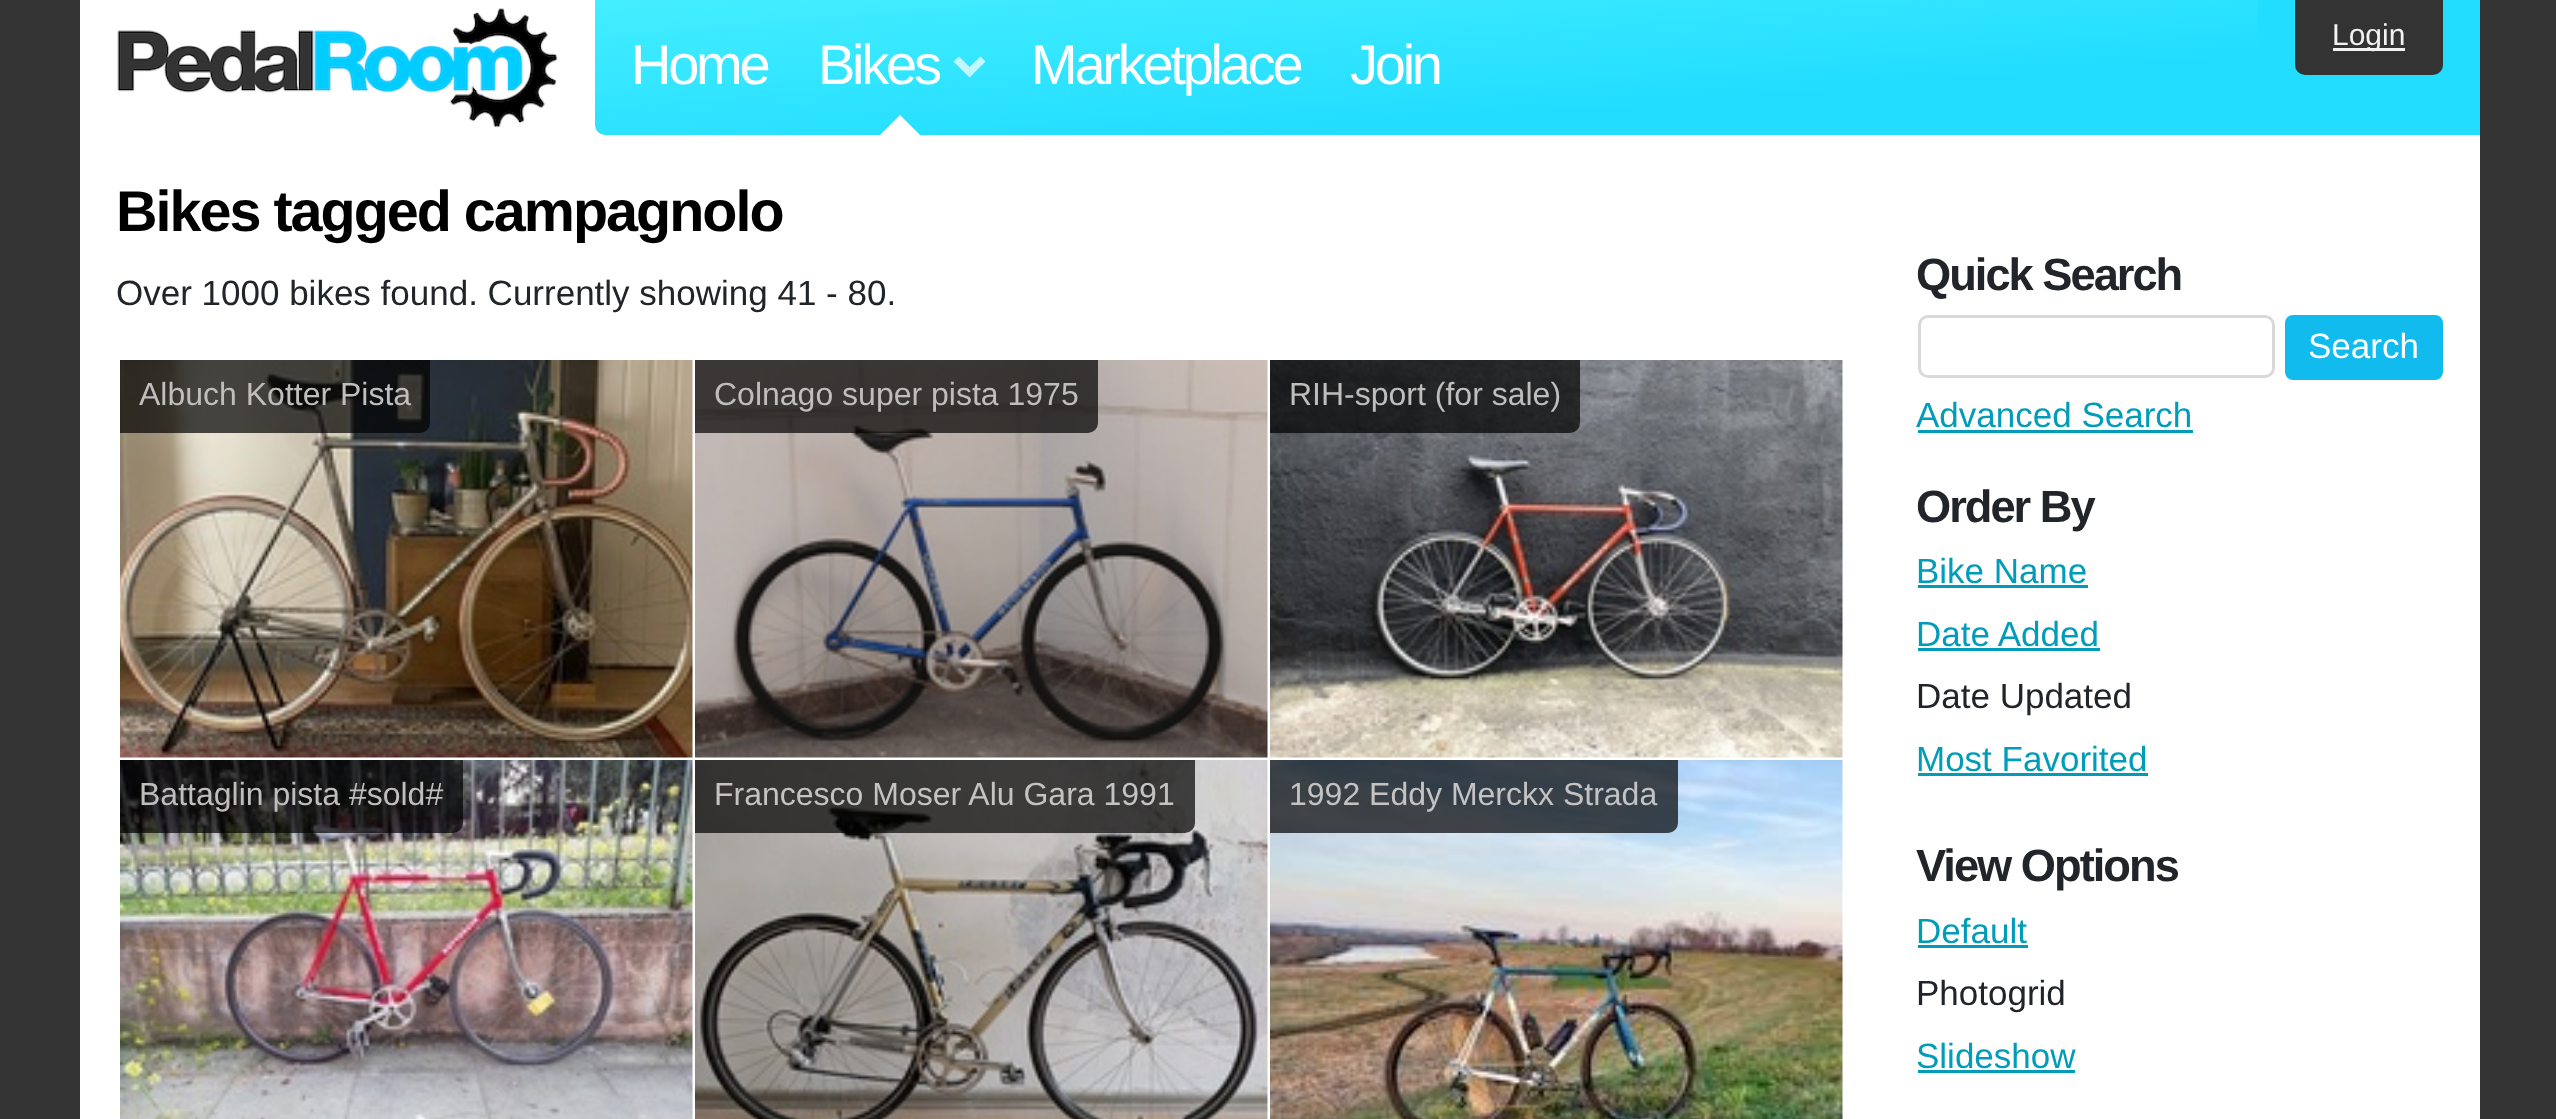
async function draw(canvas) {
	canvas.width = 2556;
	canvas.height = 1119;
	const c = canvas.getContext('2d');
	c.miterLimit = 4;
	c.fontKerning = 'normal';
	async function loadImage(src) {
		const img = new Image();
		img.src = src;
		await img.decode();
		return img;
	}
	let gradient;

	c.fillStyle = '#333';
	c.fillRect(0, 0, 2556, 1119);
	c.fillStyle = '#fff';
	c.fillRect(80, 0, 2400, 1119);
	c.drawImage(await loadImage('img1.png'), 117, 8, 441, 120);
	c.fillStyle = '#2df';
	c.fillRect(2258, 0, 222, 135);
	c.fillStyle = '#333';
	c.beginPath();
	c.roundRect(2295, 0, 148, 75, [0, 0, 10, 10]);
	c.fill();
	c.fillStyle = '#f2f2f2';
	c.fillRect(2333, 48, 72, 3);
	c.font = '30px Liberation Sans';
	c.fillText('Login', 2332, 45);
	gradient = c.createLinearGradient(1415, -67, 1437, 202);
	gradient.addColorStop(0, '#4ef');
	gradient.addColorStop(0.7, '#2df');
	c.fillStyle = gradient;
	c.beginPath();
	c.roundRect(595, 0, 1663, 135, [0, 0, 0, 10]);
	c.fill();
	c.letterSpacing = '-3.25px';
	c.font = '56px Liberation Sans';
	c.fillStyle = '#fff';
	c.fillText('Home', 631, 84);
	c.fillText('Bikes', 818, 84);
	c.fillStyle = '#ffffffb3';
	c.beginPath();
	c.moveTo(985.5, 61.5);
	c.lineTo(969.5, 77.5);
	c.lineTo(969.5, 67);
	c.lineTo(980.5, 56.5);
	c.closePath();
	c.fill();
	c.beginPath();
	c.moveTo(969.5, 77.5);
	c.lineTo(953.5, 61.5);
	c.lineTo(959, 56.5);
	c.lineTo(969.5, 67);
	c.closePath();
	c.fill();
	c.fillStyle = '#fff';
	c.beginPath();
	c.moveTo(920, 135);
	c.lineTo(880, 135);
	c.lineTo(900, 115);
	c.closePath();
	c.fill();
	c.fillText('Marketplace', 1031, 84);
	c.fillText('Join', 1350, 84);
	c.letterSpacing = '-2px';
	c.font = 'bold 57.5px Liberation Sans';
	c.fillStyle = '#000';
	c.fillText('Bikes tagged campagnolo', 116, 231);
	c.letterSpacing = '0px';
	c.font = '35px Liberation Sans';
	c.fillStyle = '#212529';
	c.fillText('Over 1000 bikes found. Currently showing 41 - 80.', 116, 305);
	c.drawImage(await loadImage('img2.png'), 120, 360, 573, 398);
	c.fillStyle = '#000000b3';
	c.beginPath();
	c.roundRect(120, 360, 310, 73, [0, 0, 10, 0]);
	c.fill();
	c.font = '32px Liberation Sans';
	c.fillStyle = '#bfbebd';
	c.fillText('Albuch Kotter Pista', 139, 405);
	c.drawImage(await loadImage('img3.png'), 695, 360, 573, 398);
	c.fillStyle = '#000000b3';
	c.beginPath();
	c.roundRect(695, 360, 403, 73, [0, 0, 10, 0]);
	c.fill();
	c.fillStyle = '#bfbebd';
	c.fillText('Colnago super pista 1975', 714, 405);
	c.drawImage(await loadImage('img4.png'), 1270, 360, 573, 398);
	c.fillStyle = '#000000b3';
	c.beginPath();
	c.roundRect(1270, 360, 310, 73, [0, 0, 10, 0]);
	c.fill();
	c.fillStyle = '#bfbebd';
	c.fillText('RIH-sport (for sale)', 1289, 405);
	c.drawImage(await loadImage('img5.png'), 120, 760, 573, 359);
	c.fillStyle = '#000000b3';
	c.beginPath();
	c.roundRect(120, 760, 343, 73, [0, 0, 10, 0]);
	c.fill();
	c.fillStyle = '#bfbebd';
	c.fillText('Battaglin pista #sold#', 139, 805);
	c.drawImage(await loadImage('img6.png'), 695, 760, 573, 359);
	c.fillStyle = '#000000b3';
	c.beginPath();
	c.roundRect(695, 760, 500, 73, [0, 0, 10, 0]);
	c.fill();
	c.fillStyle = '#c4c3c3';
	c.fillText('Francesco Moser Alu Gara 1991', 714, 805);
	c.drawImage(await loadImage('img7.png'), 1270, 760, 573, 359);
	c.fillStyle = '#000000b3';
	c.beginPath();
	c.roundRect(1270, 760, 408, 73, [0, 0, 10, 0]);
	c.fill();
	c.fillStyle = '#c4c3c3';
	c.fillText('1992 Eddy Merckx Strada', 1289, 805);
	c.letterSpacing = '-2px';
	c.font = 'bold 45.25px Liberation Sans';
	c.fillStyle = '#212529';
	c.fillText('Quick Search', 1916, 290);
	c.beginPath();
	c.roundRect(1919.5, 316.5, 354, 60, 8.5);
	c.strokeStyle = '#d9d9d9';
	c.lineWidth = 3;
	c.stroke();
	c.fillStyle = '#1be';
	c.beginPath();
	c.roundRect(2286.5, 316.5, 155, 62, 6.5);
	c.fill();
	c.strokeStyle = '#1be';
	c.stroke();
	c.letterSpacing = '0px';
	c.font = '35px Liberation Sans';
	c.fillStyle = '#fff';
	c.fillText('Search', 2308, 358);
	c.fillStyle = '#009cba';
	c.fillText('Advanced Search', 1916, 427);
	c.fillRect(1918, 430, 275, 3);
	c.letterSpacing = '-2px';
	c.font = 'bold 45.25px Liberation Sans';
	c.fillStyle = '#212529';
	c.fillText('Order By', 1916, 522);
	c.letterSpacing = '0px';
	c.font = '35px Liberation Sans';
	c.fillStyle = '#009cba';
	c.fillText('Bike Name', 1916, 583);
	c.fillRect(1918, 585, 170, 3);
	c.fillText('Date Added', 1916, 646);
	c.fillRect(1918, 648, 182, 3);
	c.fillStyle = '#212529';
	c.fillText('Date Updated', 1916, 708);
	c.fillStyle = '#009cba';
	c.fillText('Most Favorited', 1916, 771);
	c.fillRect(1918, 773, 230, 3);
	c.letterSpacing = '-2px';
	c.font = 'bold 45.25px Liberation Sans';
	c.fillStyle = '#212529';
	c.fillText('View Options', 1916, 881);
	c.letterSpacing = '0px';
	c.font = '35px Liberation Sans';
	c.fillStyle = '#009cba';
	c.fillText('Default', 1916, 943);
	c.fillRect(1918, 945, 110, 3);
	c.fillStyle = '#212529';
	c.fillText('Photogrid', 1916, 1005);
	c.fillStyle = '#009cba';
	c.fillText('Slideshow', 1916, 1068);
	c.fillRect(1918, 1070, 157, 3);
}

draw(document.querySelector('canvas'));
